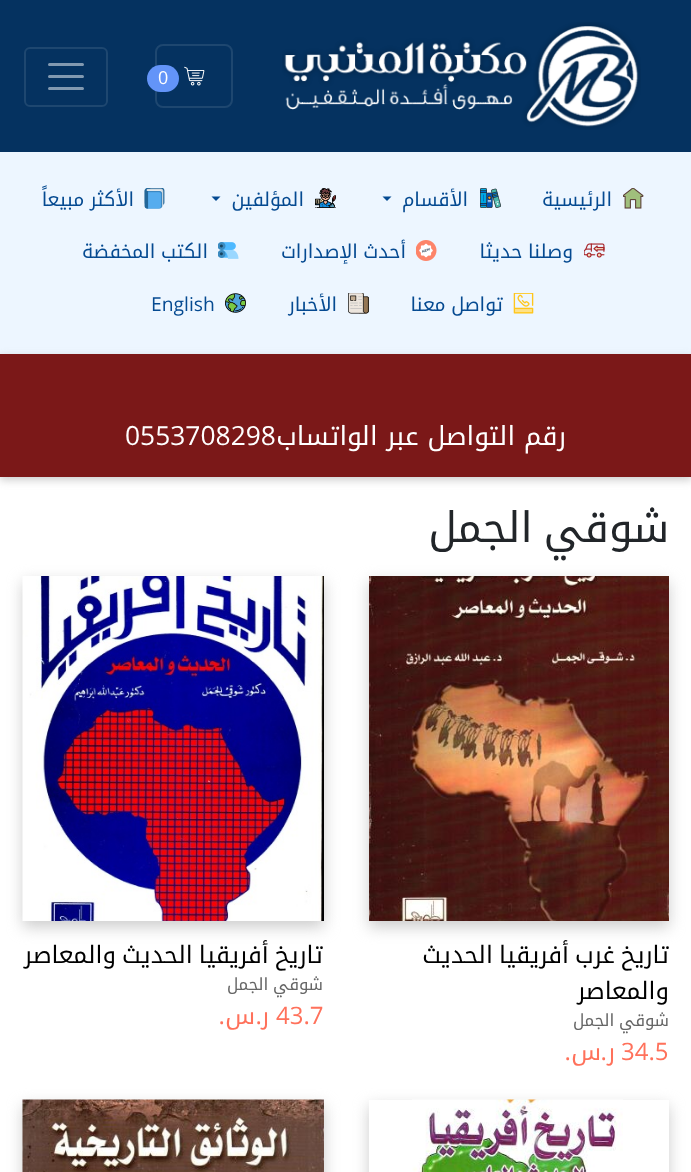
<svg xmlns="http://www.w3.org/2000/svg" width="691" height="1172">
<style>
.a{font:18px Open Sans;fill:#fff}
.b{font:19.25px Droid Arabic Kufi;direction:rtl;fill:#054a91}
.c{font:19.25px Open Sans;fill:#054a91}
.d{font:26.4px Droid Arabic Kufi;direction:rtl;fill:#fff}
.e{font:26.4px Open Sans;fill:#fff}
.f{font:42px Droid Arabic Kufi;direction:rtl;fill:#212529}
.g{font:24px Droid Arabic Kufi;direction:rtl;fill:#000}
.h{font:16.75px Droid Arabic Kufi;direction:rtl;fill:#666}
.i{font:24px Open Sans;fill:#ff715b}
.j{font:24px Droid Arabic Kufi;direction:rtl;fill:#ff715b}
.k{font:24px Open Sans;direction:rtl;fill:#ff715b}
</style>
<defs>
<clipPath id="clip1"><path d="M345 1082h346v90h-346zm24 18h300v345h-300z" clip-rule="evenodd"/></clipPath>
</defs>
<rect width="100%" height="100%" fill="#fff"/>
<path fill="#053260" d="M0 0h691v152H0z"/>
<image href="1.png" x="282" y="22" width="359" height="108"/>
<image href="2.png" x="184" y="66" width="21" height="20"/>
<rect fill="none" stroke="#1e4770" stroke-width="2" x="156" y="45" width="76" height="62" rx="7"/>
<rect fill="#6394f8" x="147" y="65" width="32" height="27" rx="13.5"/>
<rect fill="none" stroke="#1e4770" stroke-width="2" x="25" y="48" width="82" height="58" rx="5"/>
<path fill="none" stroke="#8299b0" stroke-width="3" stroke-linecap="round" d="M49.5 64.5h33m-33 12h33m-33 12h33"/>
<path fill="#edf6ff" d="M0 152h691v202H0z"/>
<image href="3.png" x="623" y="188" width="21" height="21"/>
<image href="4.png" x="480" y="188" width="21" height="20"/>
<path fill="#054a91" d="M382.5 196.5h9l-4.5 4.5z"/>
<image href="5.png" x="315" y="188" width="21" height="20"/>
<path fill="#054a91" d="M211.5 196.5h9l-4.5 4.5z"/>
<image href="6.png" x="144" y="188" width="21" height="21"/>
<image href="7.png" x="584" y="243" width="21" height="15"/>
<image href="8.png" x="416" y="240" width="21" height="21"/>
<image href="9.png" x="218" y="242" width="21" height="17"/>
<image href="10.png" x="513" y="293" width="21" height="21"/>
<image href="11.png" x="348" y="293" width="21" height="21"/>
<image href="12.png" x="225" y="293" width="21" height="20"/>
<path fill="#ccc" filter="blur(4.5px)" d="M0 357h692v123H0z"/>
<path fill="#7b1818" d="M0 354h691v123H0z"/>
<path fill="#ccc" filter="blur(7.5px)" d="M369 582h300v345H369z"/>
<image href="13.png" x="369" y="576" width="300" height="345"/>
<path fill="#ccc" filter="blur(7.5px)" d="M23 582h301v345H23z"/>
<image href="14.png" x="22" y="576" width="302" height="345"/>
<g clip-path="url(#clip1)">
<path fill="#ccc" filter="blur(7.5px)" d="M369 1106h300v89H369z"/>
</g>
<image href="15.png" x="412" y="1099" width="211" height="73"/>
<path fill="#ccc" filter="blur(7.5px)" d="M23 1106h301v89H23z"/>
<image href="16.png" x="22" y="1099" width="302" height="73"/>
<text class="a" x="158" y="84">0</text>
<text class="b" x="612" y="206">الرئيسية</text>
<text class="b" x="468" y="206">الأقسام</text>
<text class="b" x="304" y="206">المؤلفين</text>
<text class="b" x="134" y="206" word-spacing="-1">الأكثر مبيعاً</text>
<text class="b" x="573" y="258" word-spacing="-1">وصلنا حديثا</text>
<text class="b" x="406" y="258" word-spacing="-1">أحدث الإصدارات</text>
<text class="b" x="208" y="258" word-spacing="-1">الكتب المخفضة</text>
<text class="b" x="503" y="311" word-spacing="-1">تواصل معنا</text>
<text class="b" x="337" y="311">الأخبار</text>
<text class="c" x="151" y="311">English</text>
<text class="d" x="566" y="445">رقم التواصل عبر الواتساب</text>
<text class="e" x="125" y="445">0553708298</text>
<text class="f" x="669" y="542" word-spacing="-3">شوقي الجمل</text>
<text class="g" x="669" y="963" word-spacing="-2">تاريخ غرب أفريقيا الحديث</text>
<text class="g" x="669" y="999">والمعاصر</text>
<text class="h" x="669" y="1026" word-spacing="-1">شوقي الجمل</text>
<text class="i" x="621" y="1060">34.5</text>
<text class="j" x="615" y="1060">ر</text>
<text class="k" x="607" y="1060">.</text>
<text class="j" x="601" y="1060">س</text>
<text class="k" x="571" y="1060">.</text>
<text class="g" x="323" y="963" word-spacing="-2">تاريخ أفريقيا الحديث والمعاصر</text>
<text class="h" x="323" y="990" word-spacing="-1">شوقي الجمل</text>
<text class="i" x="276" y="1024">43.7</text>
<text class="j" x="269" y="1024">ر</text>
<text class="k" x="262" y="1024">.</text>
<text class="j" x="255" y="1024">س</text>
<text class="k" x="225" y="1024">.</text>
</svg>
